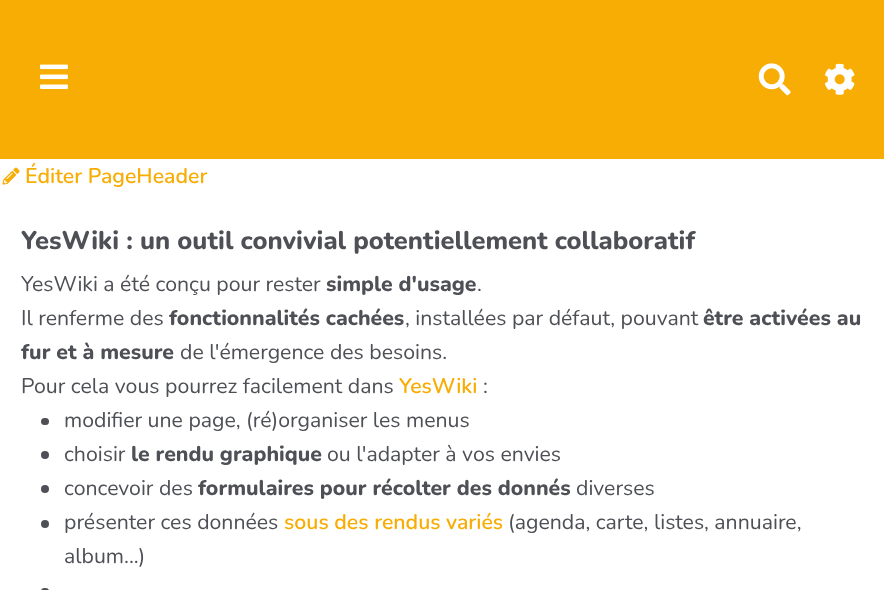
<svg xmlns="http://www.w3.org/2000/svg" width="884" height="590">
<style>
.a{font:600 21.25px Nunito;fill:#f8ad05}
.b{font:800 25.5px Nunito;fill:#4e5056}
.c{font:21.25px Nunito;fill:#4e5056}
.d{font:800 21.25px Nunito;fill:#4e5056}
</style>
<rect width="100%" height="100%" fill="#fff"/>
<path fill="#f8ad05" d="M0 0h884v159H0z"/>
<image href="1.png" x="40" y="64" width="28" height="25"/>
<image href="2.png" x="758" y="63" width="33" height="33"/>
<image href="3.png" x="824" y="63" width="31" height="32"/>
<image href="4.png" x="2" y="167" width="18" height="18"/>
<rect fill="#4e5056" x="41" y="418" width="8" height="7" rx="3.5"/>
<circle fill="#4e5056" cx="45" cy="455" r="4"/>
<circle fill="#4e5056" cx="45" cy="489" r="4"/>
<circle fill="#4e5056" cx="45" cy="524" r="4"/>
<rect fill="#4e5056" x="41" y="588" width="8" height="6" rx="3.5"/>
<text class="a" x="25" y="183">Éditer PageHeader</text>
<text class="b" x="21" y="249">YesWiki : un outil convivial potentiellement collaboratif</text>
<text class="c" x="21" y="291">YesWiki a été conçu pour rester</text>
<text class="d" x="326" y="291">simple d'usage</text>
<text class="c" x="477" y="291">.</text>
<text class="c" x="21" y="325">Il renferme des</text>
<text class="d" x="169" y="325">fonctionnalités cachées</text>
<text class="c" x="405" y="325">, installées par défaut, pouvant</text>
<text class="d" x="703" y="325">être activées au</text>
<text class="d" x="21" y="359">fur et à mesure</text>
<text class="c" x="180" y="359">de l'émergence des besoins.</text>
<text class="c" x="21" y="393">Pour cela vous pourrez facilement dans</text>
<text class="a" x="399" y="393">YesWiki</text>
<text class="c" x="483" y="393">:</text>
<text class="c" x="64" y="427">modifier une page, (ré)organiser les menus</text>
<text class="c" x="64" y="461">choisir</text>
<text class="d" x="131" y="461">le rendu graphique</text>
<text class="c" x="327" y="461">ou l'adapter à vos envies</text>
<text class="c" x="64" y="495">concevoir des</text>
<text class="d" x="198" y="495">formulaires pour récolter des donnés</text>
<text class="c" x="576" y="495">diverses</text>
<text class="c" x="64" y="529">présenter ces données</text>
<text class="a" x="284" y="529">sous des rendus variés</text>
<text class="c" x="508" y="529">(agenda, carte, listes, annuaire,</text>
<text class="c" x="64" y="563">album...)</text>
</svg>
